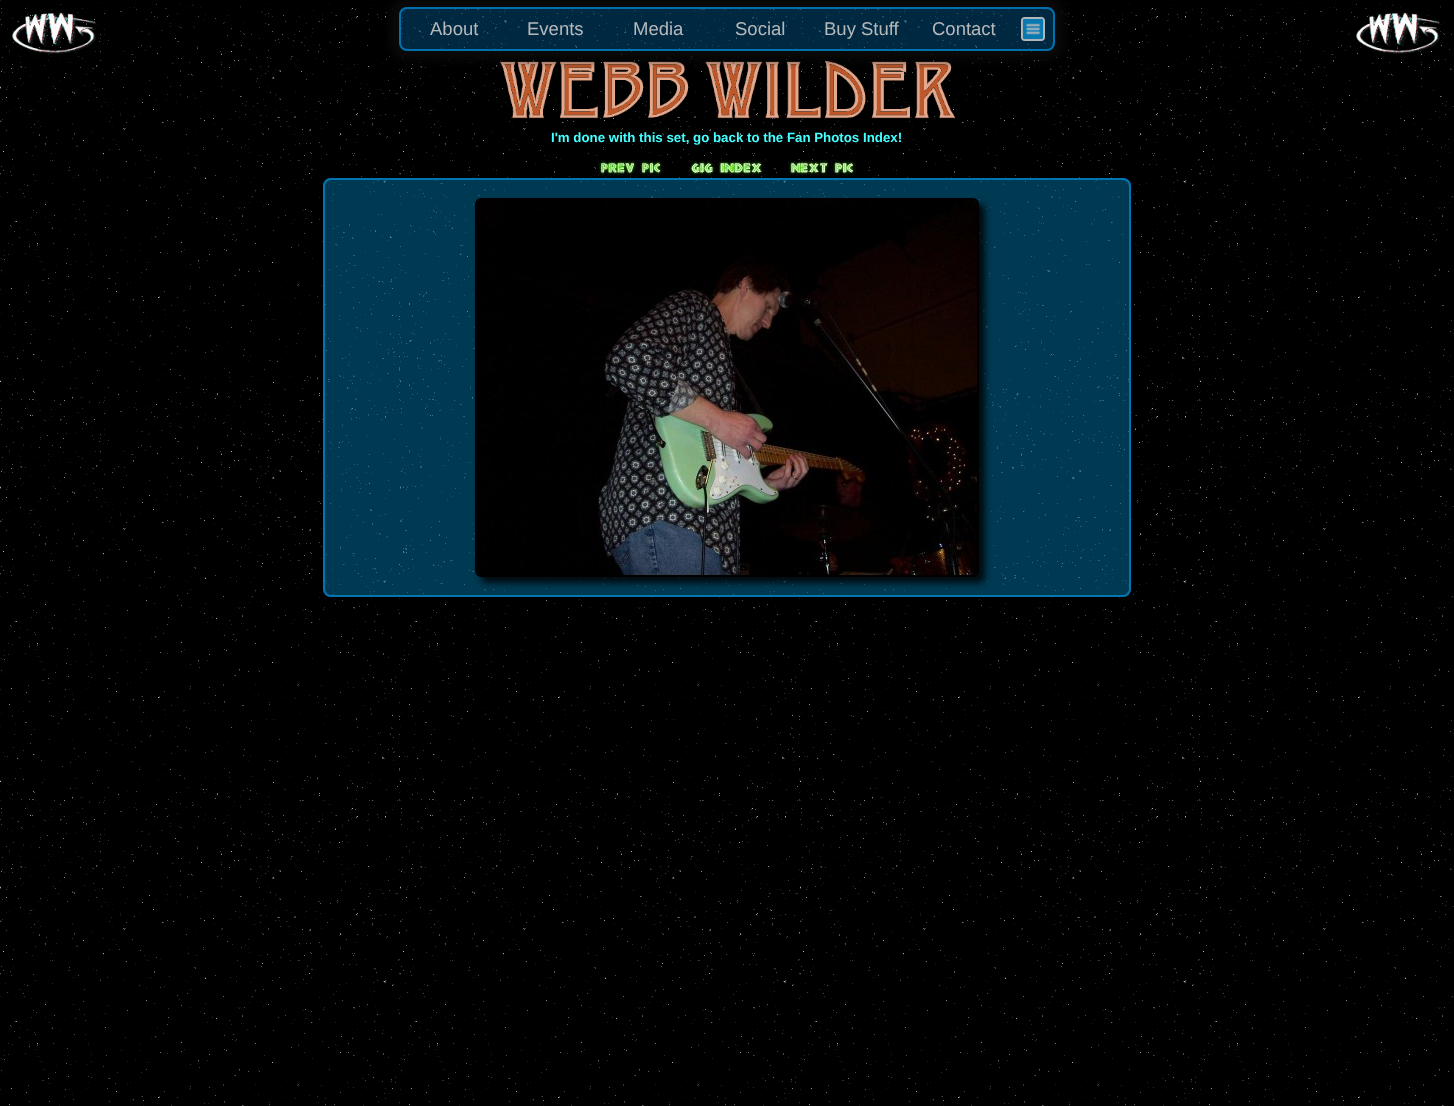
<svg xmlns="http://www.w3.org/2000/svg" width="1454" height="1106">
<style>
.a{font:18.5px Liberation Sans;fill:#b6b8ba}
.b{font:bold 13.3px Liberation Sans;fill:#4ff}
</style>
<defs>
<linearGradient id="g1" gradientUnits="userSpaceOnUse" x1="727" y1="0" x2="727" y2="68"><stop offset="0" stop-color="#000"/><stop offset="0.15" stop-color="#000" stop-opacity="0.01"/></linearGradient>
<clipPath id="clip1"><path d="M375 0h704v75h-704zm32 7h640c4.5 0 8 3.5 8 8v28c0 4.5-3.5 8-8 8h-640c-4.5 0-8-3.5-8-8v-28c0-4.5 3.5-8 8-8z" clip-rule="evenodd"/></clipPath>
</defs>
<rect width="100%" height="100%" fill="#fff"/>
<image href="1.png" x="0" y="0" width="1454" height="1106"/>
<image href="6.png" x="500" y="61" width="456" height="58"/>
<rect fill="url(#g1)" width="1454" height="68" rx="8"/>
<image href="2.png" x="12" y="12" width="86" height="42"/>
<g clip-path="url(#clip1)">
<rect fill="#0a0a0ad9" filter="blur(4.5px)" x="390" y="-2" width="674" height="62" rx="17"/>
</g>
<image href="3.png" x="399" y="7" width="656" height="44"/>
<rect fill="none" stroke="#0075b2f2" stroke-width="2" x="400" y="8" width="654" height="42" rx="7"/>
<rect fill="#c0c0c0f2" x="1021" y="17" width="24" height="24" rx="4"/>
<image href="4.png" x="1022" y="18" width="22" height="22"/>
<image href="5.png" x="1356" y="12" width="86" height="42"/>
<image href="7.png" x="598" y="160" width="65" height="16"/>
<image href="8.png" x="688" y="160" width="77" height="16"/>
<image href="9.png" x="788" y="160" width="68" height="16"/>
<image href="10.png" x="323" y="178" width="808" height="419"/>
<rect fill="none" stroke="#0075b2" stroke-width="2" x="324" y="179" width="806" height="417" rx="7"/>
<rect fill="#000000cc" filter="blur(3px)" x="481" y="204" width="504" height="379" rx="6"/>
<rect fill="none" stroke="#000" stroke-width="2" x="476" y="199" width="502" height="377" rx="5"/>
<image href="11.png" x="477" y="200" width="500" height="375"/>
<text class="a" x="430" y="35">About</text>
<text class="a" x="527" y="35">Events</text>
<text class="a" x="633" y="35">Media</text>
<text class="a" x="735" y="35">Social</text>
<text class="a" x="824" y="35">Buy Stuff</text>
<text class="a" x="932" y="35">Contact</text>
<text class="b" x="551" y="142">I'm done with this set, go back to the Fan Photos Index!</text>
</svg>
